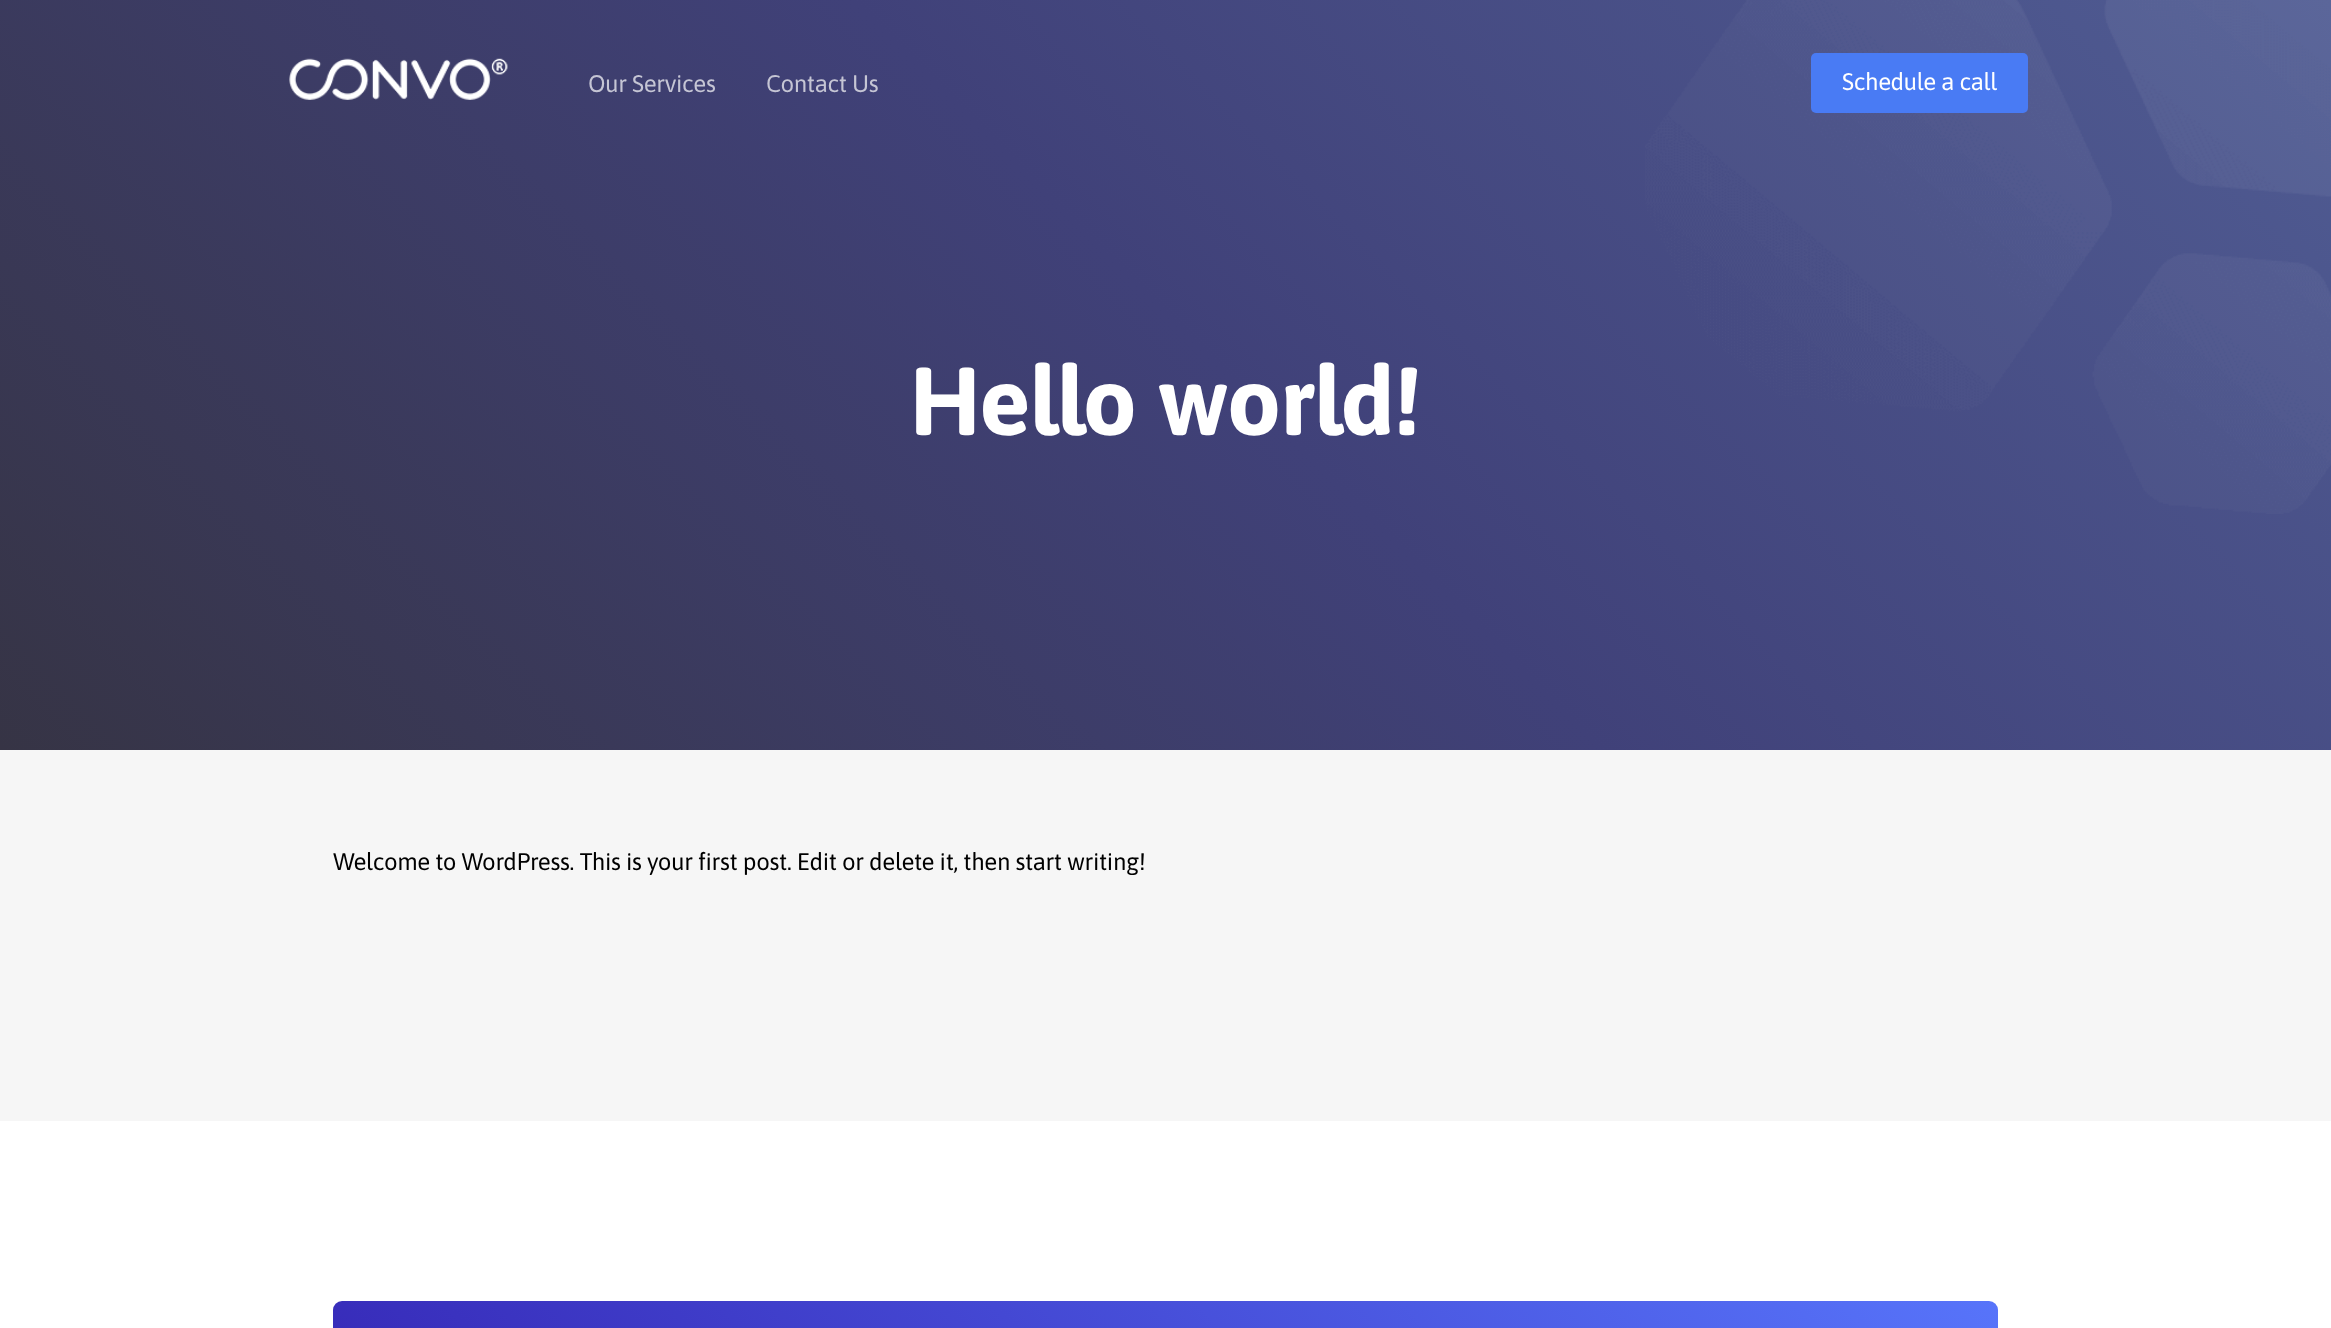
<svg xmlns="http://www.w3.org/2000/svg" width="2331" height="1328">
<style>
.a{font:24px Asap;letter-spacing:-0.35px;fill:#c5c5d4}
.b{font:24px Asap;letter-spacing:-0.35px;fill:#fff}
.c{font:bold 96px Asap;letter-spacing:-1.4px;fill:#fff}
.d{font:24px Asap;letter-spacing:-0.35px;fill:#000}
</style>
<defs>
<linearGradient id="g1" gradientUnits="userSpaceOnUse" x1="395" y1="1145" x2="1936" y2="-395"><stop offset="0" stop-color="#363445"/><stop offset="0.52" stop-color="#404179"/><stop offset="1" stop-color="#505c93"/></linearGradient>
<linearGradient id="g2" gradientUnits="userSpaceOnUse" x1="639" y1="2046" x2="1692" y2="994"><stop offset="0" stop-color="#301cab"/><stop offset="0.52" stop-color="#4448d3"/><stop offset="1" stop-color="#5774fa"/></linearGradient>
</defs>
<rect width="100%" height="100%" fill="#fff"/>
<path fill="url(#g1)" d="M0 0h2331v750H0z"/>
<image href="1.png" x="289" y="58" width="219" height="42"/>
<image href="2.png" x="1645" y="0" width="686" height="514"/>
<rect fill="#497bf4" x="1811" y="53" width="217" height="60" rx="5"/>
<path fill="#f6f6f6" d="M0 750h2331v371H0z"/>
<rect fill="url(#g2)" x="333" y="1301" width="1665" height="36" rx="9"/>
<text class="a" x="588" y="92">Our Services</text>
<text class="a" x="766" y="92">Contact Us</text>
<text class="b" x="1842" y="90">Schedule a call</text>
<text class="c" x="910" y="435">Hello world!</text>
<text class="d" x="333" y="870">Welcome to WordPress. This is your first post. Edit or delete it, then start writing!</text>
</svg>
